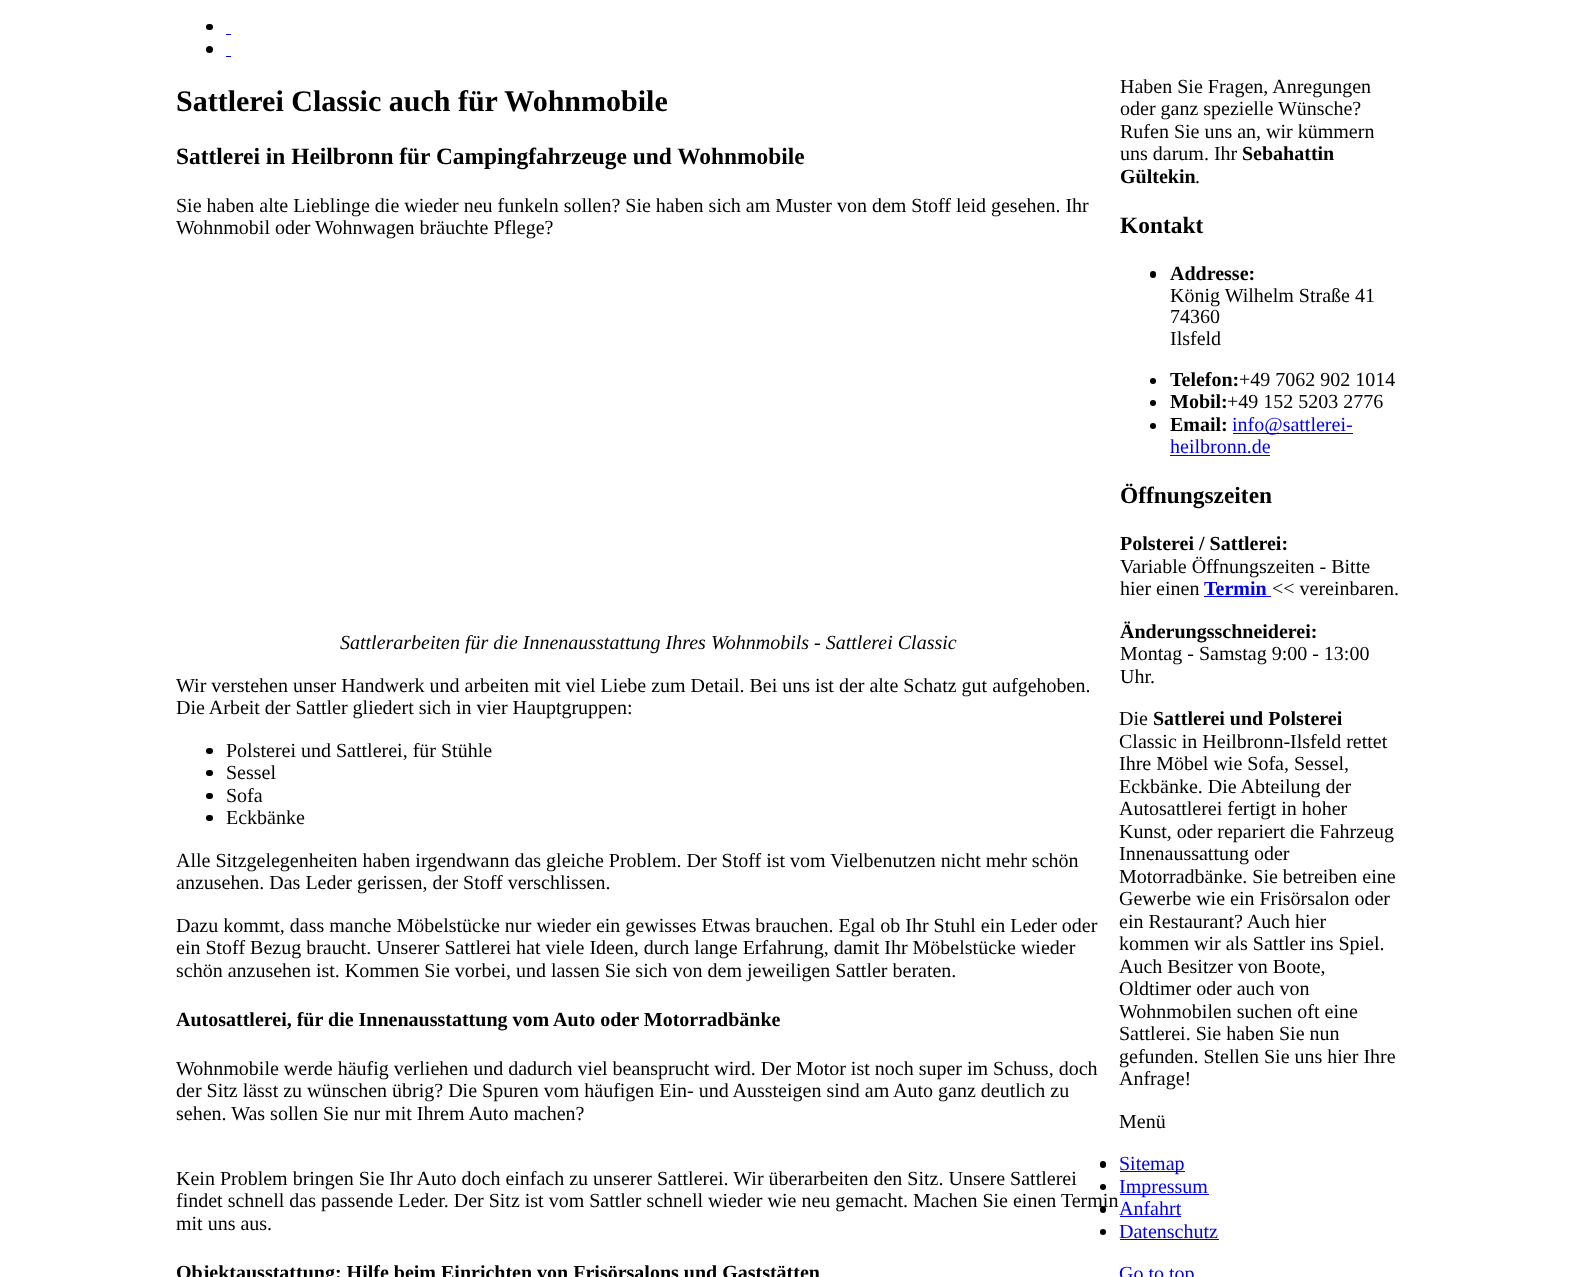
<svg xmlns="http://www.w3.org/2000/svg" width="1577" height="1277">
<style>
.a{font:bold 30px Liberation Serif;fill:#000}
.b{font:bold 23.4px Liberation Serif;fill:#000}
.c{font:20px Liberation Serif;fill:#000}
.d{font:italic 20px Liberation Serif;fill:#000}
.e{font:bold 20px Liberation Serif;fill:#000}
.f{font:20px Liberation Serif;fill:#00e}
.g{font:bold 20px Liberation Serif;fill:#00e}
</style>
<rect width="100%" height="100%" fill="#fff"/>
<rect fill="#000" x="206" y="24" width="7" height="6" rx="3"/>
<path fill="#00e" d="M226 34h5v1H226z"/>
<circle fill="#000" cx="209.5" cy="49.5" r="3.5"/>
<path fill="#00e" d="M226 56h5v1H226z"/>
<rect fill="#000" x="206" y="748" width="7" height="6" rx="3"/>
<rect fill="#000" x="206" y="770" width="7" height="6" rx="3"/>
<rect fill="#000" x="206" y="793" width="7" height="6" rx="3"/>
<rect fill="#000" x="206" y="815" width="7" height="6" rx="3"/>
<rect fill="#000" x="1150" y="271" width="6" height="7" rx="3"/>
<circle fill="#000" cx="1153" cy="381" r="3"/>
<circle fill="#000" cx="1153" cy="403" r="3"/>
<circle fill="#000" cx="1153" cy="426" r="3"/>
<path fill="#00e" d="M1233 433h120v1H1233z"/>
<path fill="#00e" d="M1170 455h100v1H1170z"/>
<path fill="#00e" d="M1204 596h67v1H1204z"/>
<rect fill="#000" x="1100" y="1161" width="6" height="7" rx="3"/>
<path fill="#00e" d="M1120 1171h65v1H1120z"/>
<circle fill="#000" cx="1103" cy="1187" r="3"/>
<path fill="#00e" d="M1120 1194h89v1H1120z"/>
<rect fill="#000" x="1100" y="1206" width="6" height="7" rx="3"/>
<path fill="#00e" d="M1120 1216h61v1H1120z"/>
<circle fill="#000" cx="1103" cy="1232" r="3"/>
<path fill="#00e" d="M1120 1239h99v1H1120z"/>
<text class="a" x="176" y="111">Sattlerei Classic auch für Wohnmobile</text>
<text class="b" x="176" y="164">Sattlerei in Heilbronn für Campingfahrzeuge und Wohnmobile</text>
<text class="c" x="176" y="212">Sie haben alte Lieblinge die wieder neu funkeln sollen? Sie haben sich am Muster von dem Stoff leid gesehen. Ihr</text>
<text class="c" x="176" y="234">Wohnmobil oder Wohnwagen bräuchte Pflege?</text>
<text class="d" x="340" y="649">Sattlerarbeiten für die Innenausstattung Ihres Wohnmobils - Sattlerei Classic</text>
<text class="c" x="176" y="692">Wir verstehen unser Handwerk und arbeiten mit viel Liebe zum Detail. Bei uns ist der alte Schatz gut aufgehoben.</text>
<text class="c" x="176" y="714">Die Arbeit der Sattler gliedert sich in vier Hauptgruppen:</text>
<text class="c" x="226" y="757">Polsterei und Sattlerei, für Stühle</text>
<text class="c" x="226" y="779">Sessel</text>
<text class="c" x="226" y="802">Sofa</text>
<text class="c" x="226" y="824">Eckbänke</text>
<text class="c" x="176" y="867">Alle Sitzgelegenheiten haben irgendwann das gleiche Problem. Der Stoff ist vom Vielbenutzen nicht mehr schön</text>
<text class="c" x="176" y="889">anzusehen. Das Leder gerissen, der Stoff verschlissen.</text>
<text class="c" x="176" y="932">Dazu kommt, dass manche Möbelstücke nur wieder ein gewisses Etwas brauchen. Egal ob Ihr Stuhl ein Leder oder</text>
<text class="c" x="176" y="954">ein Stoff Bezug braucht. Unserer Sattlerei hat viele Ideen, durch lange Erfahrung, damit Ihr Möbelstücke wieder</text>
<text class="c" x="176" y="977">schön anzusehen ist. Kommen Sie vorbei, und lassen Sie sich von dem jeweiligen Sattler beraten.</text>
<text class="e" x="176" y="1026">Autosattlerei, für die Innenausstattung vom Auto oder Motorradbänke</text>
<text class="c" x="176" y="1075">Wohnmobile werde häufig verliehen und dadurch viel beansprucht wird. Der Motor ist noch super im Schuss, doch</text>
<text class="c" x="176" y="1097">der Sitz lässt zu wünschen übrig? Die Spuren vom häufigen Ein- und Aussteigen sind am Auto ganz deutlich zu</text>
<text class="c" x="176" y="1120">sehen. Was sollen Sie nur mit Ihrem Auto machen?</text>
<text class="c" x="176" y="1185">Kein Problem bringen Sie Ihr Auto doch einfach zu unserer Sattlerei. Wir überarbeiten den Sitz. Unsere Sattlerei</text>
<text class="c" x="176" y="1207">findet schnell das passende Leder. Der Sitz ist vom Sattler schnell wieder wie neu gemacht. Machen Sie einen Termin</text>
<text class="c" x="176" y="1230">mit uns aus.</text>
<text class="e" x="176" y="1279">Objektausstattung: Hilfe beim Einrichten von Frisörsalons und Gaststätten</text>
<text class="c" x="1120" y="93">Haben Sie Fragen, Anregungen</text>
<text class="c" x="1120" y="115">oder ganz spezielle Wünsche?</text>
<text class="c" x="1120" y="138">Rufen Sie uns an, wir kümmern</text>
<text class="c" x="1120" y="160">uns darum. Ihr</text>
<text class="e" x="1242" y="160">Sebahattin</text>
<text class="e" x="1120" y="183">Gültekin</text>
<text class="c" x="1195" y="183">.</text>
<text class="b" x="1120" y="233">Kontakt</text>
<text class="e" x="1170" y="280">Addresse:</text>
<text class="c" x="1170" y="302">König Wilhelm Straße 41</text>
<text class="c" x="1170" y="323">74360</text>
<text class="c" x="1170" y="345">Ilsfeld</text>
<text class="e" x="1170" y="386">Telefon:</text>
<text class="c" x="1239" y="386">+49 7062 902 1014</text>
<text class="e" x="1170" y="408">Mobil:</text>
<text class="c" x="1227" y="408">+49 152 5203 2776</text>
<text class="e" x="1170" y="431">Email:</text>
<text class="f" x="1232" y="431">info@sattlerei-</text>
<text class="f" x="1170" y="453">heilbronn.de</text>
<text class="b" x="1120" y="503">Öffnungszeiten</text>
<text class="e" x="1120" y="550">Polsterei / Sattlerei:</text>
<text class="c" x="1120" y="573">Variable Öffnungszeiten - Bitte</text>
<text class="c" x="1120" y="595">hier einen</text>
<text class="g" x="1204" y="595">Termin</text>
<text class="c" x="1272" y="595">&lt;&lt; vereinbaren.</text>
<text class="e" x="1120" y="638">Änderungsschneiderei:</text>
<text class="c" x="1120" y="660">Montag - Samstag 9:00 - 13:00</text>
<text class="c" x="1120" y="683">Uhr.</text>
<text class="c" x="1119" y="725">Die</text>
<text class="e" x="1153" y="725">Sattlerei und Polsterei</text>
<text class="c" x="1119" y="748">Classic in Heilbronn-Ilsfeld rettet</text>
<text class="c" x="1119" y="770">Ihre Möbel wie Sofa, Sessel,</text>
<text class="c" x="1119" y="793">Eckbänke. Die Abteilung der</text>
<text class="c" x="1119" y="815">Autosattlerei fertigt in hoher</text>
<text class="c" x="1119" y="838">Kunst, oder repariert die Fahrzeug</text>
<text class="c" x="1119" y="860">Innenaussattung oder</text>
<text class="c" x="1119" y="883">Motorradbänke. Sie betreiben eine</text>
<text class="c" x="1119" y="905">Gewerbe wie ein Frisörsalon oder</text>
<text class="c" x="1119" y="928">ein Restaurant? Auch hier</text>
<text class="c" x="1119" y="950">kommen wir als Sattler ins Spiel.</text>
<text class="c" x="1119" y="973">Auch Besitzer von Boote,</text>
<text class="c" x="1119" y="995">Oldtimer oder auch von</text>
<text class="c" x="1119" y="1018">Wohnmobilen suchen oft eine</text>
<text class="c" x="1119" y="1040">Sattlerei. Sie haben Sie nun</text>
<text class="c" x="1119" y="1063">gefunden. Stellen Sie uns hier Ihre</text>
<text class="c" x="1119" y="1085">Anfrage!</text>
<text class="c" x="1119" y="1128">Menü</text>
<text class="f" x="1119" y="1170">Sitemap</text>
<text class="f" x="1119" y="1193">Impressum</text>
<text class="f" x="1119" y="1215">Anfahrt</text>
<text class="f" x="1119" y="1238">Datenschutz</text>
<text class="f" x="1119" y="1280">Go to top</text>
</svg>
